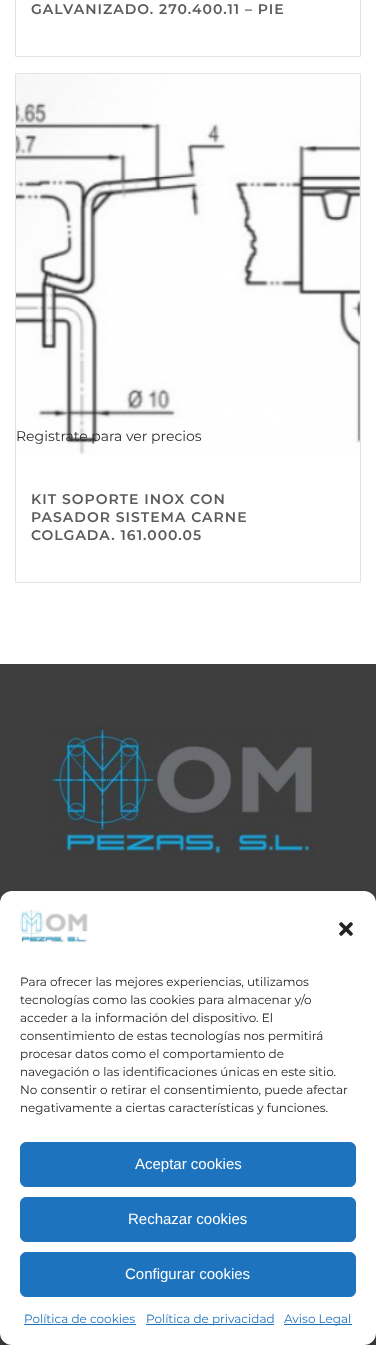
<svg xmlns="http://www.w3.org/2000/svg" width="376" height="1345">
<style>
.a{font:600 14px Montserrat;letter-spacing:1px;fill:#5b5b5b}
.b{font:14px Montserrat;fill:#2e2e2e}
.c{font:12px Montserrat;fill:#222}
.d{font:15px Liberation Sans;fill:#fff}
.e{font:12px Montserrat;fill:#1e73be}
</style>
<rect width="100%" height="100%" fill="#fff"/>
<path fill="none" stroke="#e3e3e3" d="M15.5 -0.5h345v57H15.5z"/>
<path fill="none" stroke="#e3e3e3" d="M15.5 73.5h345v509H15.5z"/>
<image href="1.png" x="16" y="74" width="344" height="381"/>
<path fill="#3e3e3e" d="M0 664h376v681H0z"/>
<image href="2.png" x="47" y="725" width="268" height="137"/>
<rect fill="#0000003b" filter="blur(3px)" y="897" width="376" height="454" rx="12"/>
<rect fill="#fff" y="891" width="376" height="454" rx="12"/>
<image href="3.png" x="20" y="909" width="68" height="34"/>
<image href="4.png" x="339" y="922" width="14" height="14"/>
<rect fill="#1e73be" stroke="#1e73be" x="20.5" y="1142.5" width="335" height="44" rx="5.5"/>
<rect fill="#1e73be" stroke="#1e73be" x="20.5" y="1197.5" width="335" height="44" rx="5.5"/>
<rect fill="#1e73be" stroke="#1e73be" x="20.5" y="1252.5" width="335" height="44" rx="5.5"/>
<path fill="#1e73be" d="M24 1324h112v1H24z"/>
<path fill="#1e73be" d="M146 1324h128v1H146z"/>
<path fill="#1e73be" d="M284 1324h68v1H284z"/>
<text class="a" x="31" y="14">GALVANIZADO. 270.400.11 – PIE</text>
<text class="b" x="16" y="441">Registrate para ver precios</text>
<text class="a" x="31" y="504">KIT SOPORTE INOX CON</text>
<text class="a" x="31" y="522">PASADOR SISTEMA CARNE</text>
<text class="a" x="31" y="540">COLGADA. 161.000.05</text>
<text class="c" x="20" y="986">Para ofrecer las mejores experiencias, utilizamos</text>
<text class="c" x="20" y="1004">tecnologías como las cookies para almacenar y/o</text>
<text class="c" x="20" y="1022">acceder a la información del dispositivo. El</text>
<text class="c" x="20" y="1040">consentimiento de estas tecnologías nos permitirá</text>
<text class="c" x="20" y="1058">procesar datos como el comportamiento de</text>
<text class="c" x="20" y="1076">navegación o las identificaciones únicas en este sitio.</text>
<text class="c" x="20" y="1094">No consentir o retirar el consentimiento, puede afectar</text>
<text class="c" x="20" y="1112">negativamente a ciertas características y funciones.</text>
<text class="d" x="135" y="1169">Aceptar cookies</text>
<text class="d" x="128" y="1224">Rechazar cookies</text>
<text class="d" x="125" y="1279">Configurar cookies</text>
<text class="e" x="24" y="1323">Política de cookies</text>
<text class="e" x="146" y="1323">Política de privacidad</text>
<text class="e" x="284" y="1323">Aviso Legal</text>
</svg>
